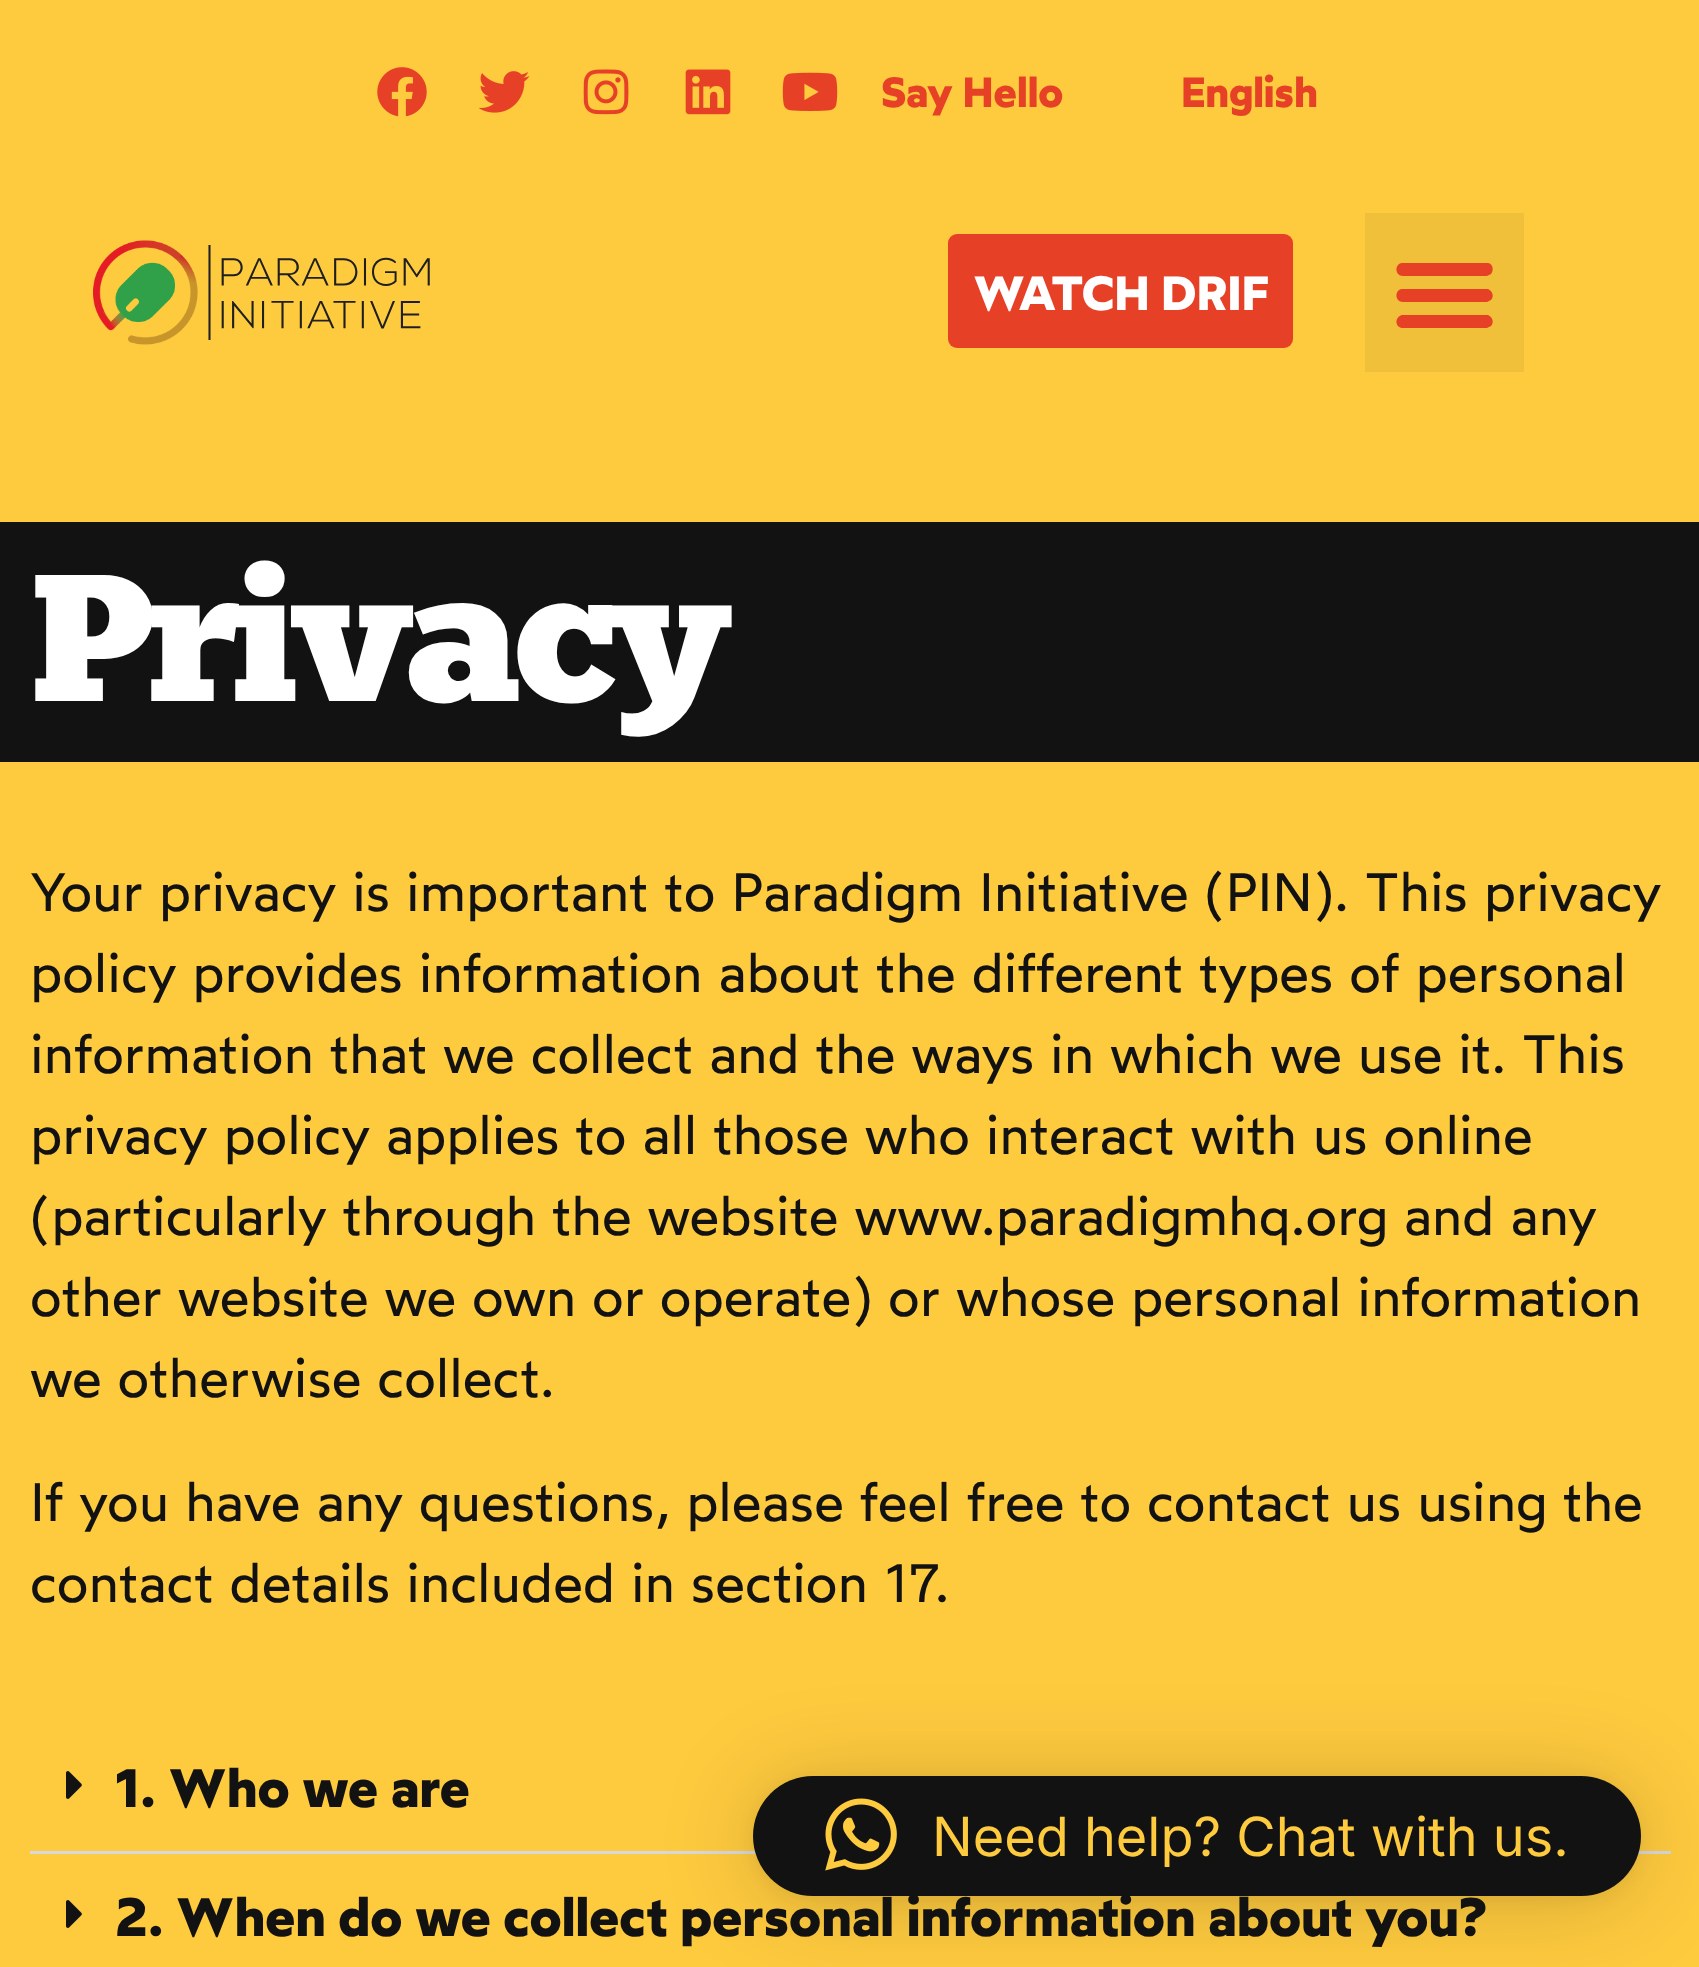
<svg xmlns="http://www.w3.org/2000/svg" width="1699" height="1967">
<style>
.a{font:bold 42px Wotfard;fill:#e64127}
.b{font:bold 48px Wotfard;fill:#fff}
.c{font:900 180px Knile;letter-spacing:-9px;fill:#fff}
.d{font:54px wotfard;fill:#121212}
.e{font:bold 54px Wotfard;fill:#121212}
.f{font:54px Inter;fill:#feca3e}
</style>
<rect width="100%" height="100%" fill="#feca3e"/>
<image href="1.png" x="377" y="67" width="50" height="50"/>
<image href="2.png" x="478" y="71" width="52" height="42"/>
<image href="3.png" x="583" y="69" width="46" height="46"/>
<image href="4.png" x="685" y="69" width="46" height="46"/>
<image href="5.png" x="782" y="72" width="56" height="39"/>
<image href="6.png" x="93" y="240" width="337" height="105"/>
<rect fill="#e64127" x="948" y="234" width="345" height="114" rx="9"/>
<path fill="#f1c03b" d="M1365 213h159v159H1365z"/>
<path fill="#e64127" d="M1403 276h84l4-2c3-4 2-10-3-11h-86c-8 1-7 13 1 13zm0 26h84l4-2c3-3 2-9-3-11h-86c-8 1-7 13 1 13zm0 26h84l4-2c3-3 2-9-3-11h-86c-8 2-7 13 1 13z"/>
<path fill="#121212" d="M0 522h1699v240H0z"/>
<path fill="#d5d8dc" d="M30 1851h1641v3H30z"/>
<image href="7.png" x="66" y="1771" width="16" height="28"/>
<image href="7.png" x="66" y="1900" width="16" height="28"/>
<rect fill="#00000029" filter="blur(48px)" x="753" y="1782" width="888" height="120" rx="60"/>
<rect fill="#0000000f" filter="blur(9px)" x="753" y="1779" width="888" height="120" rx="60"/>
<rect fill="#121212" x="753" y="1776" width="888" height="120" rx="60"/>
<image href="8.png" x="825" y="1798" width="72" height="73"/>
<text class="a" x="881" y="107">Say Hello</text>
<text class="a" x="1181" y="107">English</text>
<text class="b" x="973" y="310">WATCH DRIF</text>
<text class="c" x="30" y="701">Privacy</text>
<text class="d" x="30" y="911">Your privacy is important to Paradigm Initiative (PIN). This privacy</text>
<text class="d" x="30" y="992">policy provides information about the different types of personal</text>
<text class="d" x="30" y="1073">information that we collect and the ways in which we use it. This</text>
<text class="d" x="30" y="1154">privacy policy applies to all those who interact with us online</text>
<text class="d" x="30" y="1235">(particularly through the website www.paradigmhq.org and any</text>
<text class="d" x="30" y="1316">other website we own or operate) or whose personal information</text>
<text class="d" x="30" y="1397">we otherwise collect.</text>
<text class="d" x="30" y="1521">If you have any questions, please feel free to contact us using the</text>
<text class="d" x="30" y="1602">contact details included in section 17.</text>
<text class="e" x="114" y="1807">1. Who we are</text>
<text class="e" x="114" y="1936">2. When do we collect personal information about you?</text>
<text class="f" x="932" y="1856">Need help? Chat with us.</text>
</svg>
